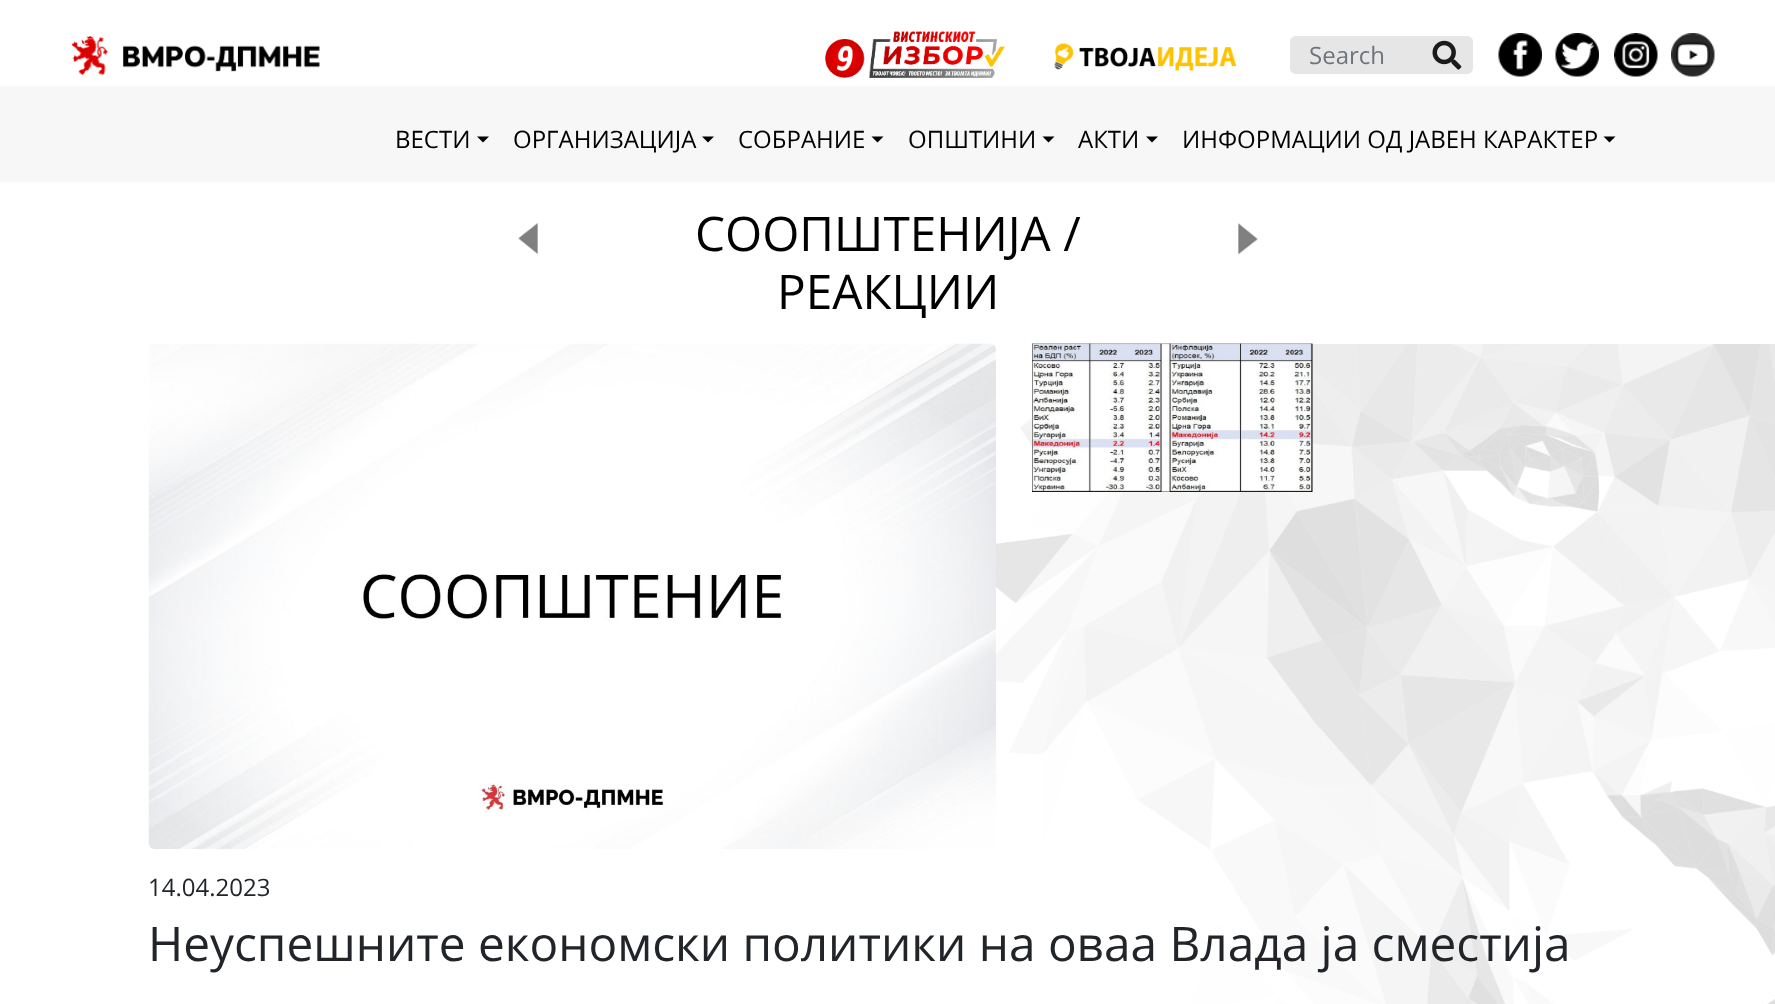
<svg xmlns="http://www.w3.org/2000/svg" width="1775" height="1004">
<style>
.a{font:24px Open Sans;fill:#6c757d}
.b{font:24px Open Sans;fill:#000}
.c{font:47.75px Open Sans;fill:#000}
.d{font:24px Open Sans;fill:#212529}
.e{font:47.75px Open Sans;fill:#212529}
</style>
<rect width="100%" height="100%" fill="#fff"/>
<image href="1.png" x="72" y="36" width="248" height="39"/>
<image href="2.png" x="825" y="31" width="180" height="47"/>
<image href="3.png" x="1054" y="43" width="182" height="28"/>
<path fill="#e6e6e6" d="M1296 36h126v38h-126c-3.5 0-6-2.5-6-6v-26c0-3.5 2.5-6 6-6z"/>
<path fill="#e6e6e6" d="M1421 36h46c3.5 0 6 2.5 6 6v26c0 3.5-2.5 6-6 6h-46z"/>
<image href="4.png" x="1432" y="40" width="30" height="30"/>
<image href="5.png" x="1498" y="33" width="44" height="44"/>
<image href="6.png" x="1555" y="33" width="44" height="44"/>
<image href="7.png" x="1614" y="33" width="44" height="44"/>
<image href="8.png" x="1671" y="33" width="44" height="44"/>
<path fill="#f7f7f7" d="M0 86h1775v96H0z"/>
<path fill="#000" d="M477 136.5h12l-6 6z"/>
<path fill="#000" d="M702 136.5h12l-6 6z"/>
<path fill="#000" d="M871.5 136.5h12l-6 6z"/>
<path fill="#000" d="M1042.5 136.5h12l-6 6z"/>
<path fill="#000" d="M1146 136.5h12l-6 6z"/>
<path fill="#000" d="M1603.5 136.5h12l-6 6z"/>
<image href="9.png" x="991" y="344" width="784" height="660"/>
<image href="10.png" x="518" y="223" width="20" height="31"/>
<image href="11.png" x="1238" y="223" width="20" height="32"/>
<image href="12.png" x="148" y="343" width="848" height="506"/>
<image href="13.png" x="1032" y="343" width="281" height="149"/>
<text class="a" x="1309" y="64">Search</text>
<text class="b" x="395" y="148">ВЕСТИ</text>
<text class="b" x="513" y="148">ОРГАНИЗАЦИЈА</text>
<text class="b" x="738" y="148">СОБРАНИЕ</text>
<text class="b" x="908" y="148">ОПШТИНИ</text>
<text class="b" x="1078" y="148">АКТИ</text>
<text class="b" x="1182" y="148">ИНФОРМАЦИИ ОД ЈАВЕН КАРАКТЕР</text>
<text class="c" x="695" y="251">СООПШТЕНИЈА /</text>
<text class="c" x="777" y="309">РЕАКЦИИ</text>
<text class="d" x="148" y="896">14.04.2023</text>
<text class="e" x="148" y="961">Неуспешните економски политики на оваа Влада ја сместија</text>
</svg>
